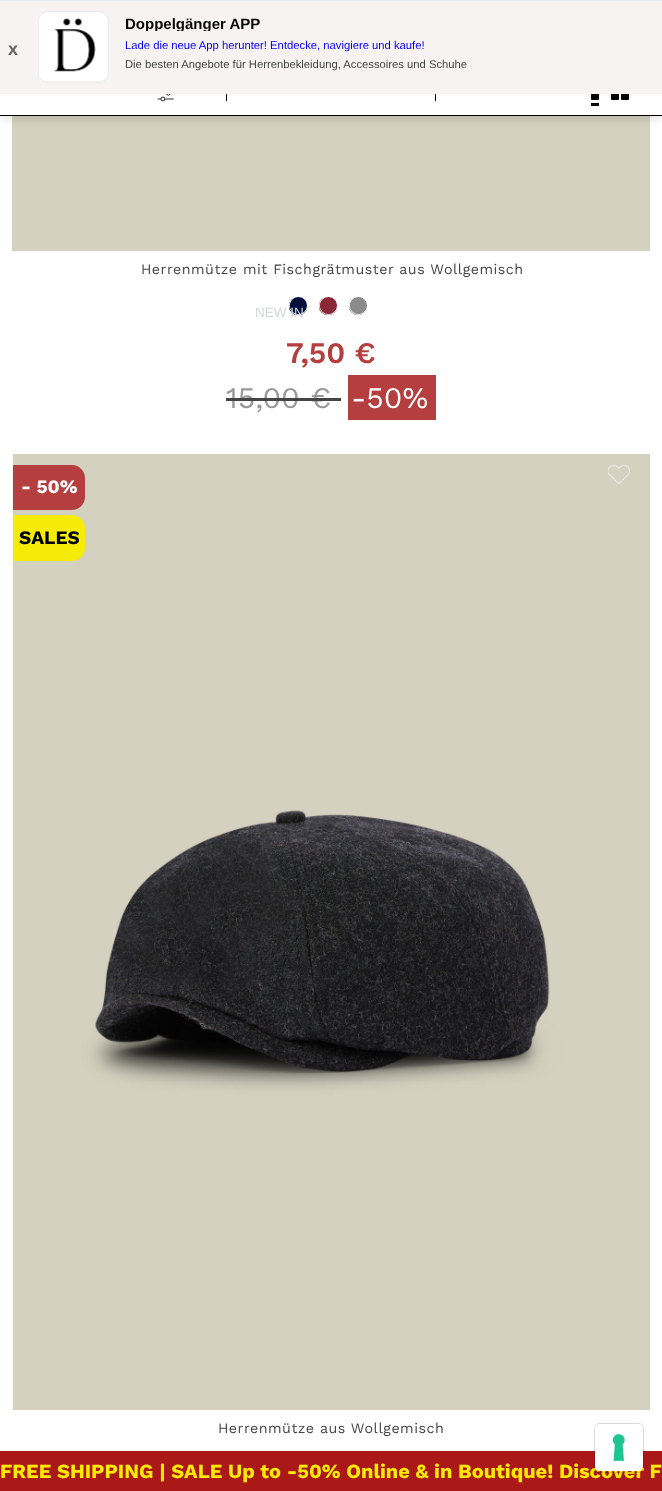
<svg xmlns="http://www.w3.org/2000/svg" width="662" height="1491">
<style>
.a{font:bold 18px Liberation Sans;fill:#666}
.b{font:bold 15px Liberation Sans;fill:#070707}
.c{font:11.25px Liberation Sans;fill:#00f}
.d{font:11.25px Liberation Sans;fill:#444}
.e{font:14.25px Work Sans;letter-spacing:0.5px;fill:#444}
.f{font:600 30px Work Sans;fill:#b53f3f}
.g{font:30px Work Sans;fill:#999}
.h{font:30px Work Sans;fill:#fff}
.i{font:bold 19px Work Sans;fill:#fff}
.j{font:bold 19px Work Sans;fill:#000}
.k{font:13.5px Liberation Sans;fill:#d3d5dd}
.l{font:bold 20px Work Sans;fill:#ffea00}
</style>
<defs>
<clipPath id="clip1"><path d="M125 11h343v20H125z"/></clipPath>
</defs>
<rect width="100%" height="100%" fill="#fff"/>
<path fill="#d5d1c0" d="M12 116h638v135H12z"/>
<path fill="#0000001a" filter="blur(4px)" d="M1 75h660v45H1z"/>
<path fill="#fff" d="M0 94h662v21H0z"/>
<rect fill="#000" x="591" y="81" width="8" height="19" rx="1"/>
<rect fill="#000" x="611" y="81" width="8" height="19" rx="1"/>
<rect fill="#000" x="621" y="81" width="8" height="19" rx="1"/>
<path fill="#f8f3f3" d="M0 1h662v93H0z"/>
<path fill="#e8ecf1" d="M0 0h662v1H0z"/>
<rect fill="none" stroke="#e8ecf1" x="38.5" y="11.5" width="70" height="71" rx="9.5"/>
<image href="1.png" x="38" y="12" width="70" height="69"/>
<image href="2.png" x="288" y="296" width="20" height="20"/>
<circle fill="none" stroke="#fff" cx="298.5" cy="305.5" r="9"/>
<image href="3.png" x="290" y="298" width="16" height="16"/>
<image href="4.png" x="318" y="296" width="20" height="20"/>
<circle fill="none" stroke="#fff" cx="328.5" cy="305.5" r="9"/>
<image href="5.png" x="320" y="298" width="16" height="16"/>
<image href="6.png" x="348" y="296" width="20" height="20"/>
<circle fill="none" stroke="#fff" cx="358.5" cy="305.5" r="9"/>
<image href="7.png" x="350" y="300" width="13" height="14"/>
<path fill="#b53f3f" d="M348 375h88v45H348z"/>
<image href="9.png" x="12" y="454" width="638" height="957"/>
<image href="8.png" x="608" y="464" width="22" height="21"/>
<path fill="#b53f3f" d="M13 465h59c7 0 13 6 13 13v19c0 7-6 13-13 13h-59z"/>
<path fill="#f5eb07" d="M13 515h59c7 0 13 6 13 13v20c0 7-6 13-13 13h-59z"/>
<path fill="#000" d="M0 115h662v1H0z"/>
<image href="10.png" x="157" y="94" width="17" height="8"/>
<path fill="#000" d="M591 103h8v3H591z"/>
<path fill="#000" d="M435 94h1v7H435z"/>
<path fill="#000" d="M226 94h1v7H226z"/>
<path fill="#aa1818" d="M0 1451h662v40H0z"/>
<text class="a" x="8" y="55">x</text>
<g clip-path="url(#clip1)">
<text class="b" x="125" y="29">Doppelgänger APP</text>
</g>
<text class="c" x="125" y="49">Lade die neue App herunter! Entdecke, navigiere und kaufe!</text>
<text class="d" x="125" y="68">Die besten Angebote für Herrenbekleidung, Accessoires und Schuhe</text>
<text class="e" x="141" y="274">Herrenmütze mit Fischgrätmuster aus Wollgemisch</text>
<text class="f" x="286" y="363">7,50 €</text>
<text class="g" x="226" y="408">15,00 €</text>
<path fill="#444" d="M226 398h115v3H226z"/>
<text class="h" x="351" y="408">-50%</text>
<text class="i" x="21" y="493">- 50%</text>
<text class="j" x="19" y="544">SALES</text>
<text class="e" x="218" y="1433">Herrenmütze aus Wollgemisch</text>
<text class="k" x="255" y="317">NEW IN</text>
<text class="l" x="0" y="1478">FREE SHIPPING | SALE Up to -50% Online &amp; in Boutique! Discover F</text>
<rect fill="none" stroke="#00000026" x="594.5" y="1423.5" width="49" height="49" rx="5.5"/>
<rect fill="#fff" x="595" y="1424" width="48" height="47" rx="5"/>
<image href="11.png" x="612" y="1434" width="13" height="27"/>
</svg>
